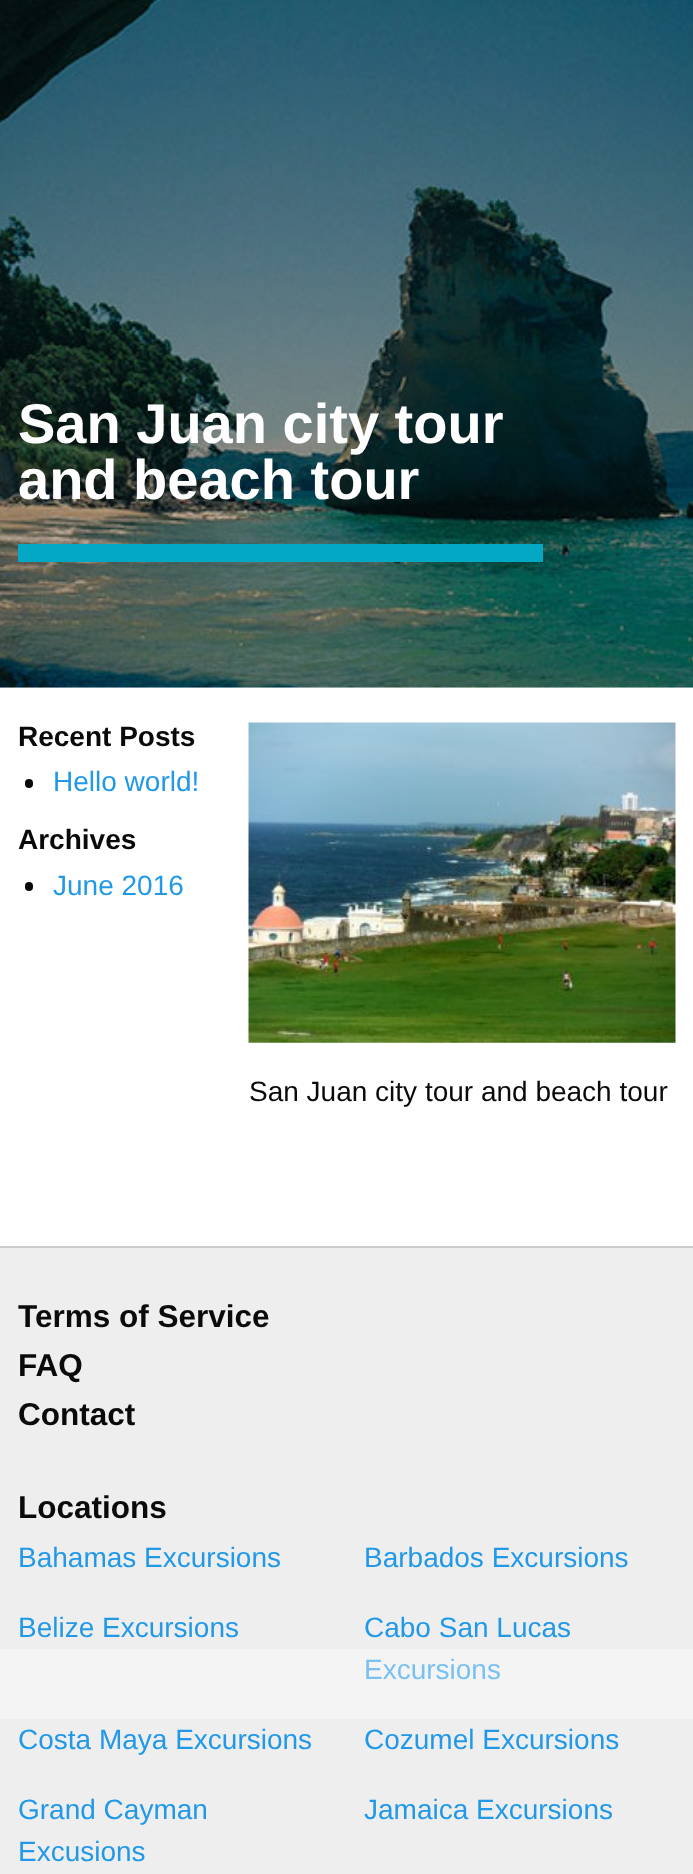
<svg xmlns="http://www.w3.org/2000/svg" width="693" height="1874">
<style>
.a{font:bold 56px Liberation Sans;fill:#fefefe}
.b{font:bold 28px Liberation Sans;fill:#0a0a0a}
.c{font:28px Liberation Sans;fill:#2199e8}
.d{font:28px Liberation Sans;fill:#0a0a0a}
.e{font:bold 31.5px Liberation Sans;fill:#0a0a0a}
.f{font:28px Liberation Sans;fill:#79c1f1}
</style>
<rect width="100%" height="100%" fill="#fff"/>
<image href="1.png" x="0" y="0" width="693" height="688"/>
<path fill="#02a8c4" d="M18 544h525v18H18z"/>
<rect fill="#0a0a0a" x="25" y="779" width="8" height="9" rx="4"/>
<rect fill="#0a0a0a" x="25" y="882" width="8" height="9" rx="4"/>
<image href="2.png" x="248" y="722" width="428" height="321"/>
<path fill="#eee" d="M0 1248h693v626H0z"/>
<path fill="#f4f4f4" d="M0 1649h693v70H0z"/>
<path fill="#ccc" d="M0 1246h693v2H0z"/>
<text class="a" x="18" y="443">San Juan city tour</text>
<text class="a" x="18" y="499">and beach tour</text>
<text class="b" x="18" y="746">Recent Posts</text>
<text class="c" x="53" y="791">Hello world!</text>
<text class="b" x="18" y="849">Archives</text>
<text class="c" x="53" y="895">June 2016</text>
<text class="d" x="249" y="1101">San Juan city tour and beach tour</text>
<text class="e" x="18" y="1327">Terms of Service</text>
<text class="e" x="18" y="1376">FAQ</text>
<text class="e" x="18" y="1425">Contact</text>
<text class="e" x="18" y="1518">Locations</text>
<text class="c" x="18" y="1567">Bahamas Excursions</text>
<text class="c" x="364" y="1567">Barbados Excursions</text>
<text class="c" x="18" y="1637">Belize Excursions</text>
<text class="c" x="364" y="1637">Cabo San Lucas</text>
<text class="f" x="364" y="1679">Excursions</text>
<text class="c" x="18" y="1749">Costa Maya Excursions</text>
<text class="c" x="364" y="1749">Cozumel Excursions</text>
<text class="c" x="18" y="1819">Grand Cayman</text>
<text class="c" x="18" y="1861">Excusions</text>
<text class="c" x="364" y="1819">Jamaica Excursions</text>
</svg>
